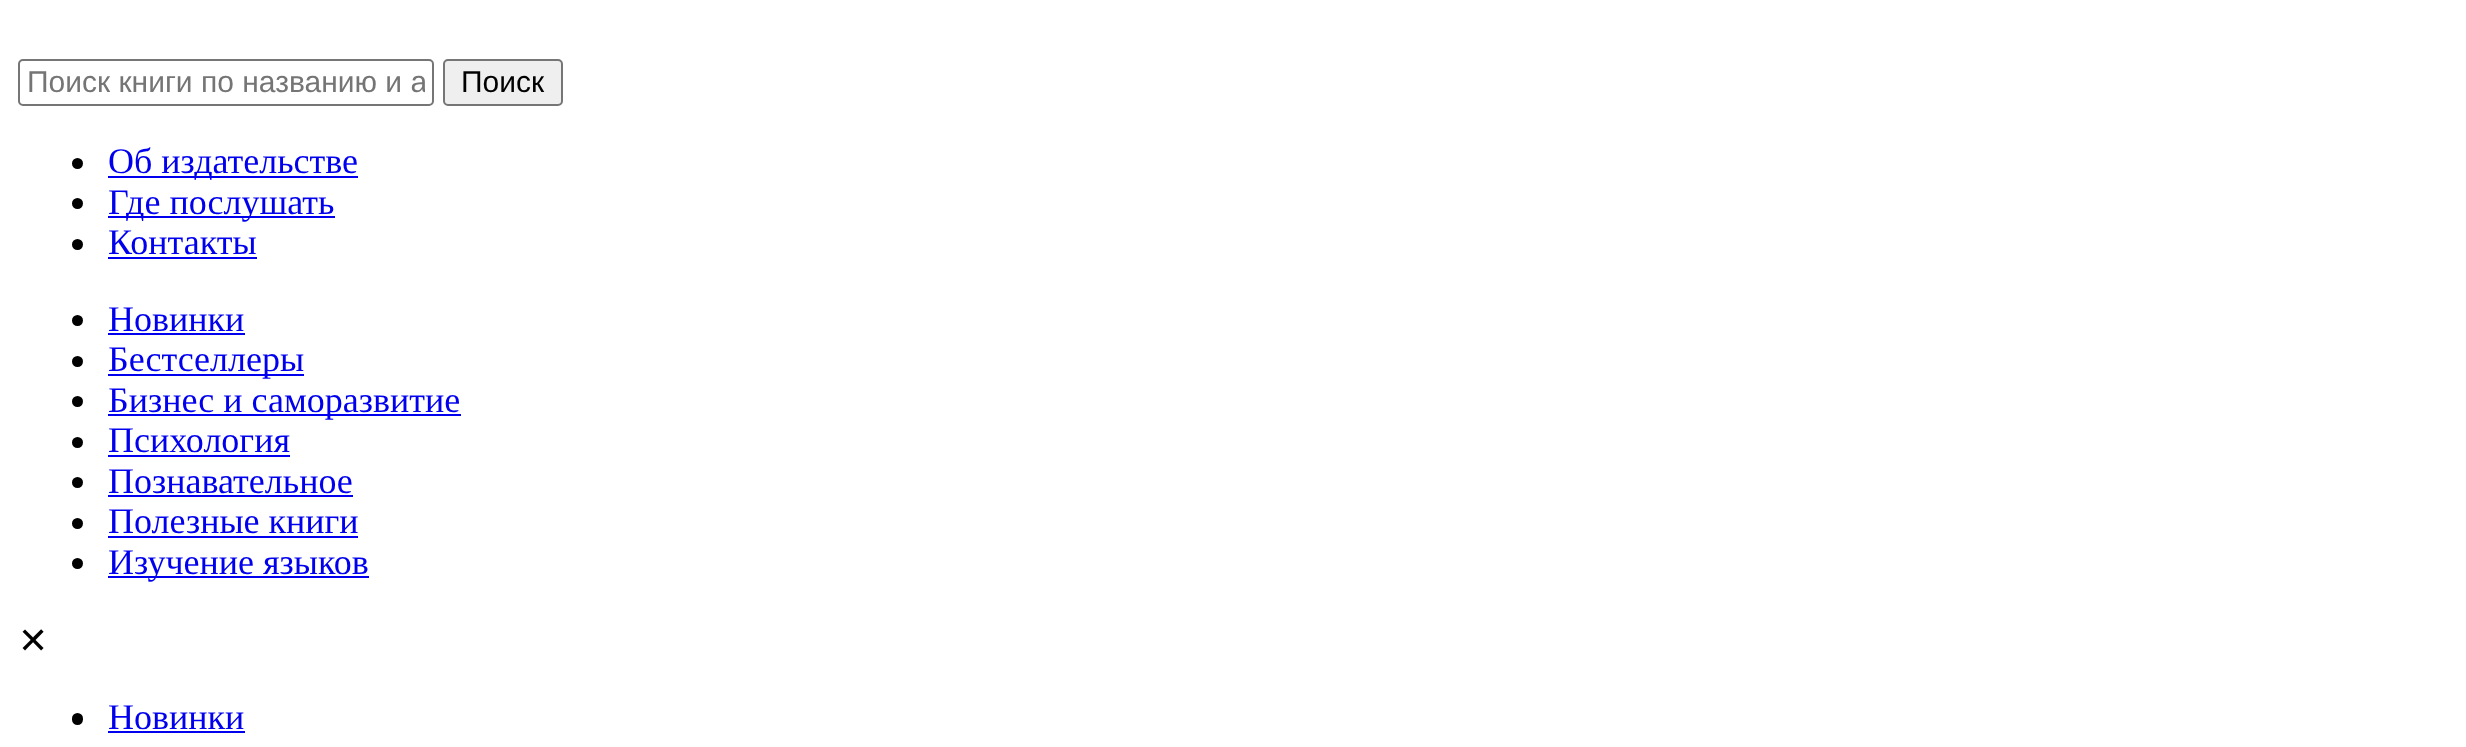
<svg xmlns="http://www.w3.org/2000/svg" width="2466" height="747">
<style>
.a{font:30px Liberation Sans;fill:#757575}
.b{font:30px Liberation Sans;fill:#000}
.c{font:36px Liberation Serif;fill:#00e}
.d{font:36px DejaVu Sans;fill:#000}
</style>
<defs>
<clipPath id="clip1"><path d="M27 65h398v34H27z"/></clipPath>
</defs>
<rect width="100%" height="100%" fill="#fff"/>
<rect fill="none" stroke="#767676" stroke-width="2" x="19" y="60" width="414" height="45" rx="4"/>
<rect fill="#efefef" stroke="#767676" stroke-width="2" x="444" y="60" width="118" height="45" rx="4"/>
<circle fill="#000" cx="77.5" cy="163.5" r="5.5"/>
<path fill="#00e" d="M108 176h250v2H108z"/>
<circle fill="#000" cx="77.5" cy="203.5" r="5.5"/>
<path fill="#00e" d="M108 216h227v2H108z"/>
<circle fill="#000" cx="77.5" cy="244.5" r="5.5"/>
<path fill="#00e" d="M108 257h149v2H108z"/>
<circle fill="#000" cx="77.5" cy="320.5" r="5.5"/>
<path fill="#00e" d="M108 333h137v2H108z"/>
<circle fill="#000" cx="77.5" cy="361.5" r="5.5"/>
<path fill="#00e" d="M108 374h196v2H108z"/>
<circle fill="#000" cx="77.5" cy="401.5" r="5.5"/>
<path fill="#00e" d="M108 414h353v2H108z"/>
<circle fill="#000" cx="77.5" cy="442.5" r="5.5"/>
<path fill="#00e" d="M108 455h182v2H108z"/>
<circle fill="#000" cx="77.5" cy="482.5" r="5.5"/>
<path fill="#00e" d="M108 495h245v2H108z"/>
<circle fill="#000" cx="77.5" cy="523.5" r="5.5"/>
<path fill="#00e" d="M108 536h250v2H108z"/>
<circle fill="#000" cx="77.5" cy="563.5" r="5.5"/>
<path fill="#00e" d="M108 576h261v2H108z"/>
<rect fill="#000" x="72" y="713" width="11" height="12" rx="5.5"/>
<path fill="#00e" d="M108 731h137v2H108z"/>
<g clip-path="url(#clip1)">
<text class="a" x="27" y="92">Поиск книги по названию и а</text>
</g>
<text class="b" x="461" y="92">Поиск</text>
<text class="c" x="108" y="173">Об издательстве</text>
<text class="c" x="108" y="214">Где послушать</text>
<text class="c" x="108" y="254">Контакты</text>
<text class="c" x="108" y="331">Новинки</text>
<text class="c" x="108" y="371">Бестселлеры</text>
<text class="c" x="108" y="412">Бизнес и саморазвитие</text>
<text class="c" x="108" y="452">Психология</text>
<text class="c" x="108" y="493">Познавательное</text>
<text class="c" x="108" y="533">Полезные книги</text>
<text class="c" x="108" y="574">Изучение языков</text>
<text class="d" x="18" y="653">✕</text>
<text class="c" x="108" y="729">Новинки</text>
</svg>
